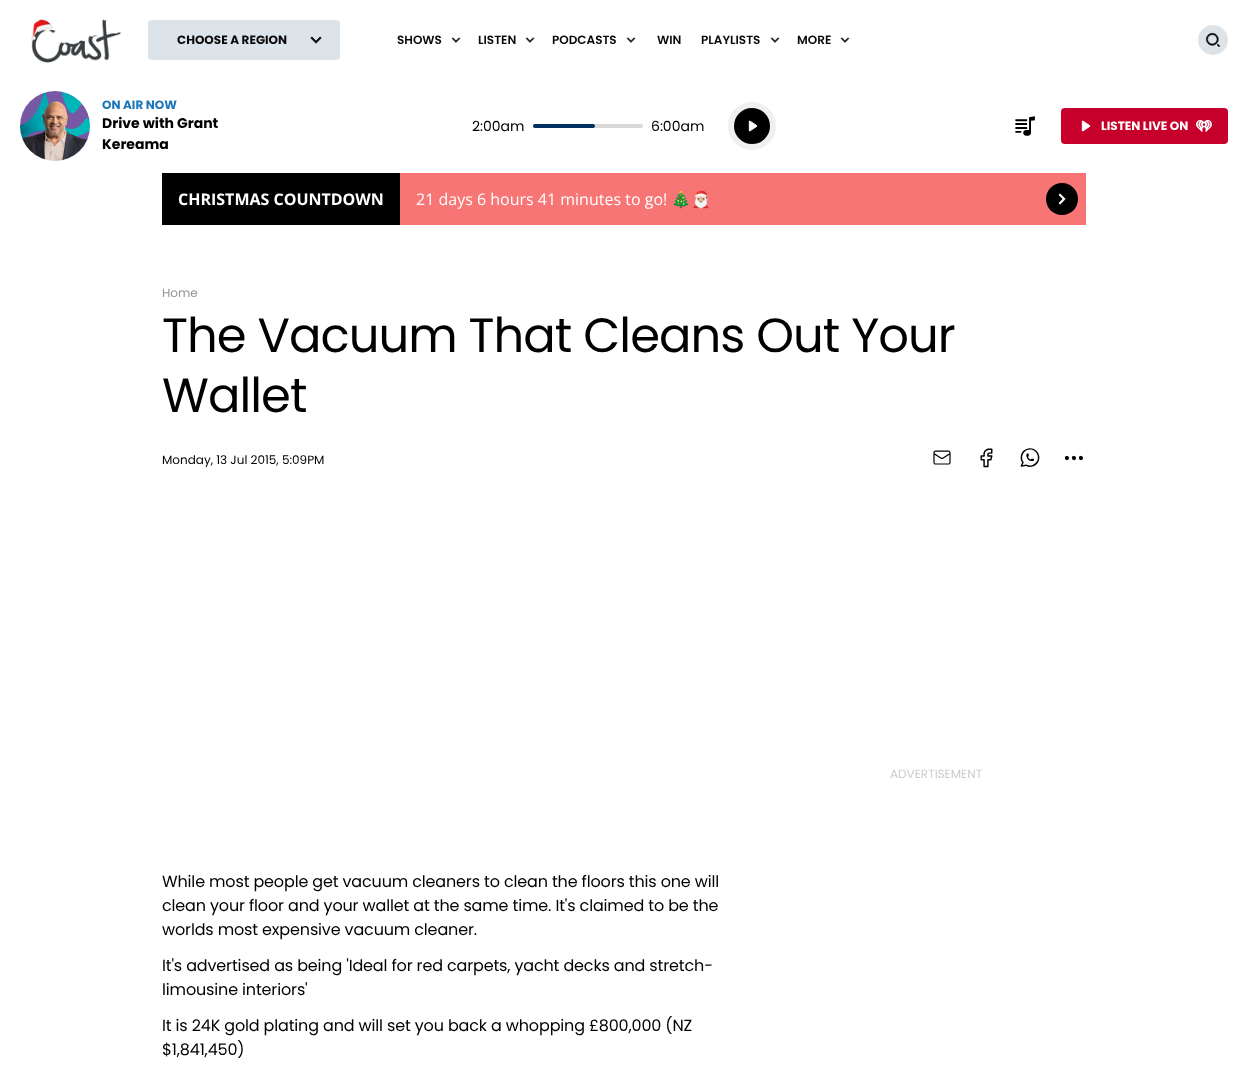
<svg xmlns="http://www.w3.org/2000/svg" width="1248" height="1079">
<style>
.a{font:bold 12px Poppins;fill:#0a0a0a}
.b{font:600 12px Poppins;fill:#0a0a0a}
.c{font:bold 12px Poppins;fill:#1b76bb}
.d{font:bold 14px Poppins;fill:#000}
.e{font:14px Poppins;fill:#000}
.f{font:bold 12px Poppins;fill:#fff}
.g{font:bold 16px Open Sans;fill:#fff}
.h{font:16px Open Sans;fill:#fff}
.i{font:16px Noto Color Emoji;fill:#fff}
.j{font:12px Poppins;fill:#949494}
.k{font:48px Poppins;letter-spacing:-0.95px;fill:#000}
.l{font:12px Poppins;fill:#000}
.m{font:12px Poppins;fill:#ccc}
.n{font:16px Poppins;letter-spacing:-0.15px;fill:#000}
</style>
<rect width="100%" height="100%" fill="#fff"/>
<image href="1.png" x="31" y="19" width="91" height="44"/>
<rect fill="#dde4e9" x="148" y="20" width="192" height="40" rx="4"/>
<image href="2.png" x="310" y="36" width="12" height="8"/>
<image href="3.png" x="451" y="37" width="10" height="6"/>
<image href="3.png" x="525" y="37" width="10" height="6"/>
<image href="3.png" x="626" y="37" width="10" height="6"/>
<image href="3.png" x="770" y="37" width="10" height="6"/>
<image href="3.png" x="840" y="37" width="10" height="6"/>
<circle fill="#dde4e9" cx="1213" cy="40" r="15"/>
<image href="4.png" x="1205" y="32" width="16" height="15"/>
<image href="5.png" x="20" y="91" width="70" height="70"/>
<rect fill="#d9d9d9" x="533" y="124" width="110" height="4" rx="2"/>
<rect fill="#002f61" x="533" y="124" width="62" height="4" rx="2"/>
<circle fill="#000" stroke="#f0f0f0" stroke-width="6" cx="752" cy="126" r="21"/>
<image href="6.png" x="748" y="120" width="10" height="12"/>
<image href="7.png" x="1015" y="116" width="20" height="20"/>
<rect fill="#c7002b" x="1061" y="108" width="167" height="36" rx="4"/>
<image href="8.png" x="1081" y="120" width="10" height="12"/>
<image href="9.png" x="1196" y="120" width="16" height="12"/>
<path fill="#f87575" d="M400 173h686v52H400z"/>
<path fill="#000" d="M162 173h238v52H162z"/>
<path fill="#000" d="M1046 199c0-9 7-16 16-16c9 0 16 7 16 16c0 9-7 16-16 16c-9 0-16-7-16-16z"/>
<image href="10.png" x="1058" y="193" width="8" height="12"/>
<image href="11.png" x="933" y="450" width="18" height="15"/>
<image href="12.png" x="980" y="448" width="13" height="20"/>
<image href="13.png" x="1020" y="448" width="20" height="19"/>
<image href="14.png" x="1064" y="455" width="19" height="6"/>
<text class="a" x="177" y="44">CHOOSE A REGION</text>
<text class="b" x="397" y="44">SHOWS</text>
<text class="b" x="478" y="44">LISTEN</text>
<text class="b" x="552" y="44">PODCASTS</text>
<text class="b" x="657" y="44">WIN</text>
<text class="b" x="701" y="44">PLAYLISTS</text>
<text class="b" x="797" y="44">MORE</text>
<text class="c" x="102" y="109">ON AIR NOW</text>
<text class="d" x="102" y="128">Drive with Grant</text>
<text class="d" x="102" y="149">Kereama</text>
<text class="e" x="472" y="131">2:00am</text>
<text class="e" x="651" y="131">6:00am</text>
<text class="f" x="1101" y="130">LISTEN LIVE ON</text>
<text class="g" x="178" y="205">CHRISTMAS COUNTDOWN</text>
<text class="h" x="416" y="205">21 days 6 hours 41 minutes to go!</text>
<text class="i" x="671" y="205">🎄🎅🏼</text>
<text class="j" x="162" y="297">Home</text>
<text class="k" x="162" y="352">The Vacuum That Cleans Out Your</text>
<text class="k" x="162" y="412">Wallet</text>
<text class="l" x="162" y="464">Monday, 13 Jul 2015, 5:09PM</text>
<text class="m" x="890" y="778">ADVERTISEMENT</text>
<text class="n" x="162" y="887">While most people get vacuum cleaners to clean the floors this one will</text>
<text class="n" x="162" y="911">clean your floor and your wallet at the same time. It's claimed to be the</text>
<text class="n" x="162" y="935">worlds most expensive vacuum cleaner.</text>
<text class="n" x="162" y="971">It's advertised as being 'Ideal for red carpets, yacht decks and stretch-</text>
<text class="n" x="162" y="995">limousine interiors'</text>
<text class="n" x="162" y="1031">It is 24K gold plating and will set you back a whopping £800,000 (NZ</text>
<text class="n" x="162" y="1055">$1,841,450)</text>
</svg>
